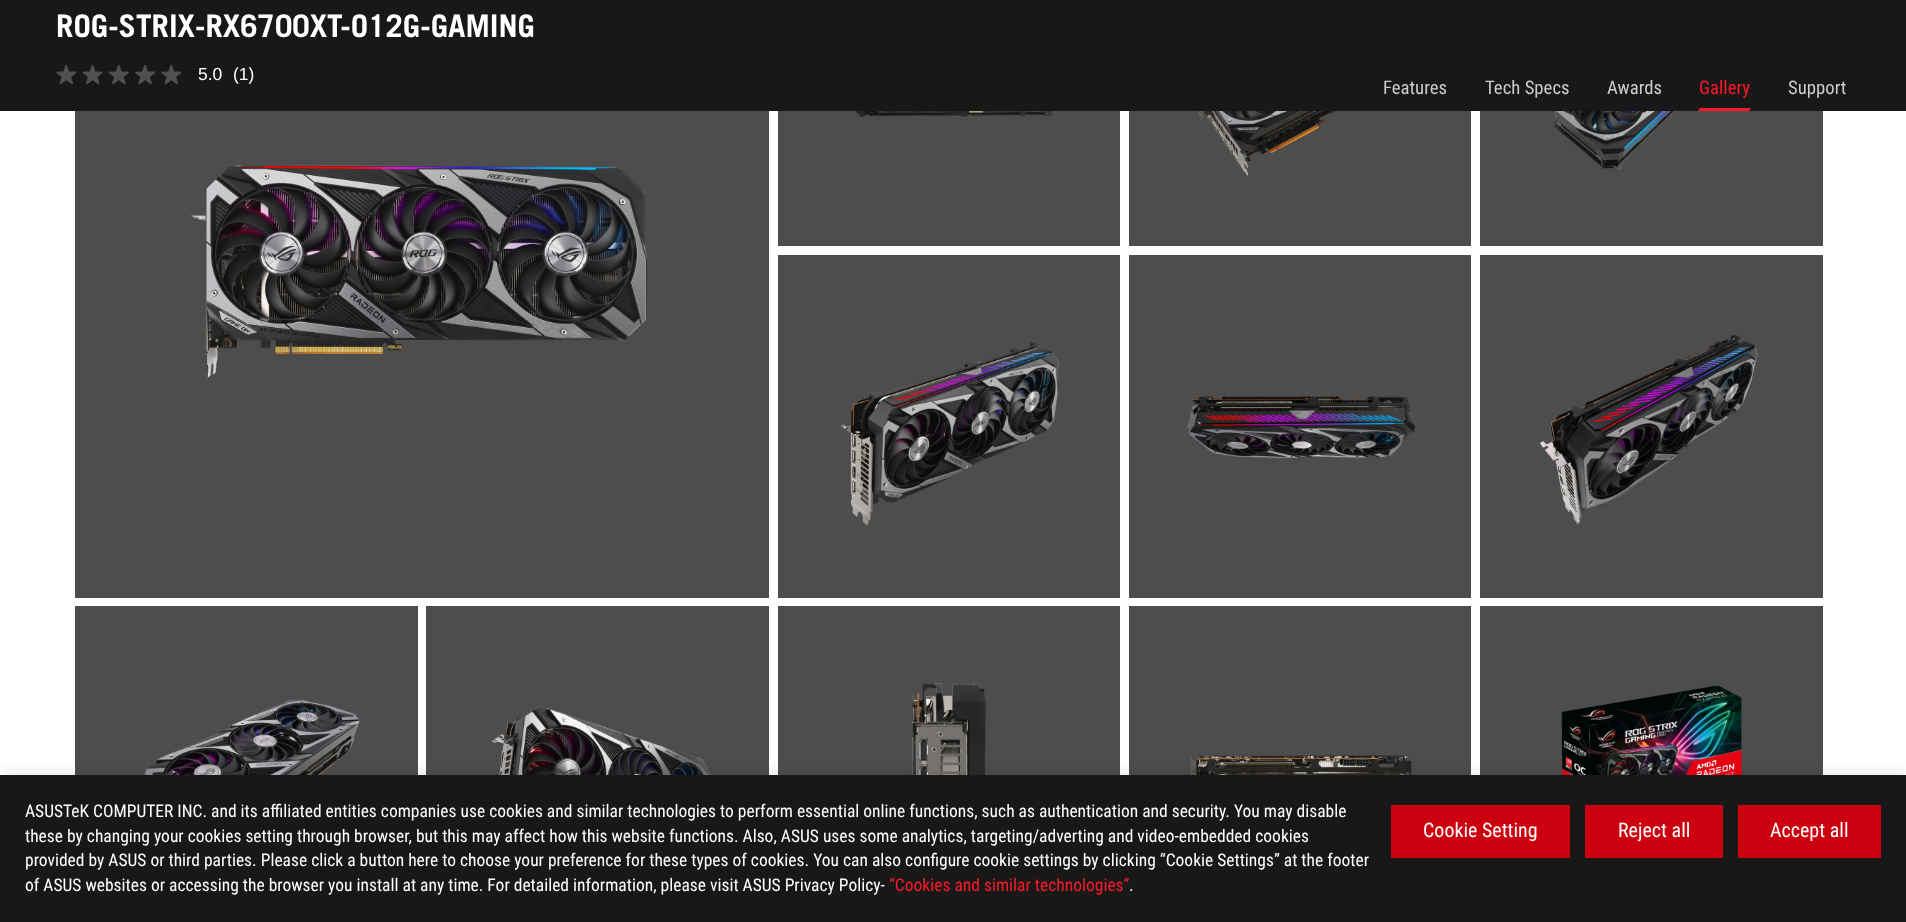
<svg xmlns="http://www.w3.org/2000/svg" width="1906" height="922">
<style>
.a{font:bold 31.25px Trade Gothic;fill:#fff}
.b{font:17.5px Liberation Sans;fill:#fff}
.c{font:18.75px Roboto Condensed;fill:#ccc}
.d{font:18.75px Roboto Condensed;fill:#ff1929}
.e{font:17.5px Roboto Condensed;fill:#fff}
.f{font:17.5px Roboto Condensed;fill:#ff1929}
.g{font:20px Roboto Condensed;fill:#fff}
</style>
<rect width="100%" height="100%" fill="#fff"/>
<path fill="#181818" d="M0 0h1906v111H0z"/>
<image href="1.png" x="56" y="65" width="21" height="20"/>
<image href="2.png" x="82" y="65" width="21" height="20"/>
<image href="3.png" x="108" y="65" width="21" height="20"/>
<image href="4.png" x="135" y="65" width="20" height="20"/>
<image href="1.png" x="161" y="65" width="21" height="20"/>
<path fill="#ff1929" d="M1700 108h51l-2 3h-51z"/>
<path fill="#4d4d4d" d="M75 111h694v487H75z"/>
<image href="5.png" x="191" y="165" width="457" height="213"/>
<path fill="#4d4d4d" d="M778 111h342v135H778z"/>
<image href="6.png" x="854" y="111" width="199" height="7"/>
<path fill="#4d4d4d" d="M1129 111h342v135H1129z"/>
<image href="7.png" x="1199" y="111" width="137" height="65"/>
<path fill="#4d4d4d" d="M1480 111h343v135H1480z"/>
<image href="8.png" x="1553" y="111" width="123" height="59"/>
<path fill="#4d4d4d" d="M778 255h342v343H778z"/>
<image href="9.png" x="840" y="341" width="220" height="185"/>
<path fill="#4d4d4d" d="M1129 255h342v343H1129z"/>
<image href="10.png" x="1187" y="396" width="228" height="62"/>
<path fill="#4d4d4d" d="M1480 255h343v343H1480z"/>
<image href="11.png" x="1539" y="334" width="219" height="191"/>
<path fill="#4d4d4d" d="M75 606h343v169H75z"/>
<image href="12.png" x="144" y="700" width="216" height="75"/>
<path fill="#4d4d4d" d="M426 606h343v169H426z"/>
<image href="13.png" x="491" y="705" width="220" height="70"/>
<path fill="#4d4d4d" d="M778 606h342v169H778z"/>
<image href="14.png" x="911" y="683" width="76" height="92"/>
<path fill="#4d4d4d" d="M1129 606h342v169H1129z"/>
<image href="15.png" x="1190" y="755" width="222" height="20"/>
<path fill="#4d4d4d" d="M1480 606h343v169H1480z"/>
<image href="16.png" x="1561" y="685" width="181" height="90"/>
<path fill="#0000001a" filter="blur(7.5px)" d="M1 773h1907v147H1z"/>
<path fill="#181818" d="M0 775h1906v147H0z"/>
<path fill="#cc000e" d="M1391 805h179v53H1391z"/>
<path fill="#cc000e" d="M1585 805h138v53H1585z"/>
<path fill="#cc000e" d="M1738 805h143v53H1738z"/>
<text class="a" x="56" y="37">ROG-STRIX-RX6700XT-O12G-GAMING</text>
<text class="b" x="198" y="80">5.0</text>
<text class="b" x="233" y="80">(1)</text>
<text class="c" x="1383" y="94">Features</text>
<text class="c" x="1485" y="94">Tech Specs</text>
<text class="c" x="1607" y="94">Awards</text>
<text class="d" x="1699" y="94">Gallery</text>
<text class="c" x="1788" y="94">Support</text>
<text class="e" x="25" y="817">ASUSTeK COMPUTER INC. and its affiliated entities companies use cookies and similar technologies to perform essential online functions, such as authentication and security. You may disable</text>
<text class="e" x="25" y="842">these by changing your cookies setting through browser, but this may affect how this website functions. Also, ASUS uses some analytics, targeting/adverting and video-embedded cookies</text>
<text class="e" x="25" y="866">provided by ASUS or third parties. Please click a button here to choose your preference for these types of cookies. You can also configure cookie settings by clicking “Cookie Settings” at the footer</text>
<text class="e" x="25" y="891">of ASUS websites or accessing the browser you install at any time. For detailed information, please visit ASUS Privacy Policy-</text>
<text class="f" x="889" y="891">“Cookies and similar technologies”</text>
<text class="e" x="1129" y="891">.</text>
<text class="g" x="1423" y="837">Cookie Setting</text>
<text class="g" x="1618" y="837">Reject all</text>
<text class="g" x="1770" y="837">Accept all</text>
</svg>
